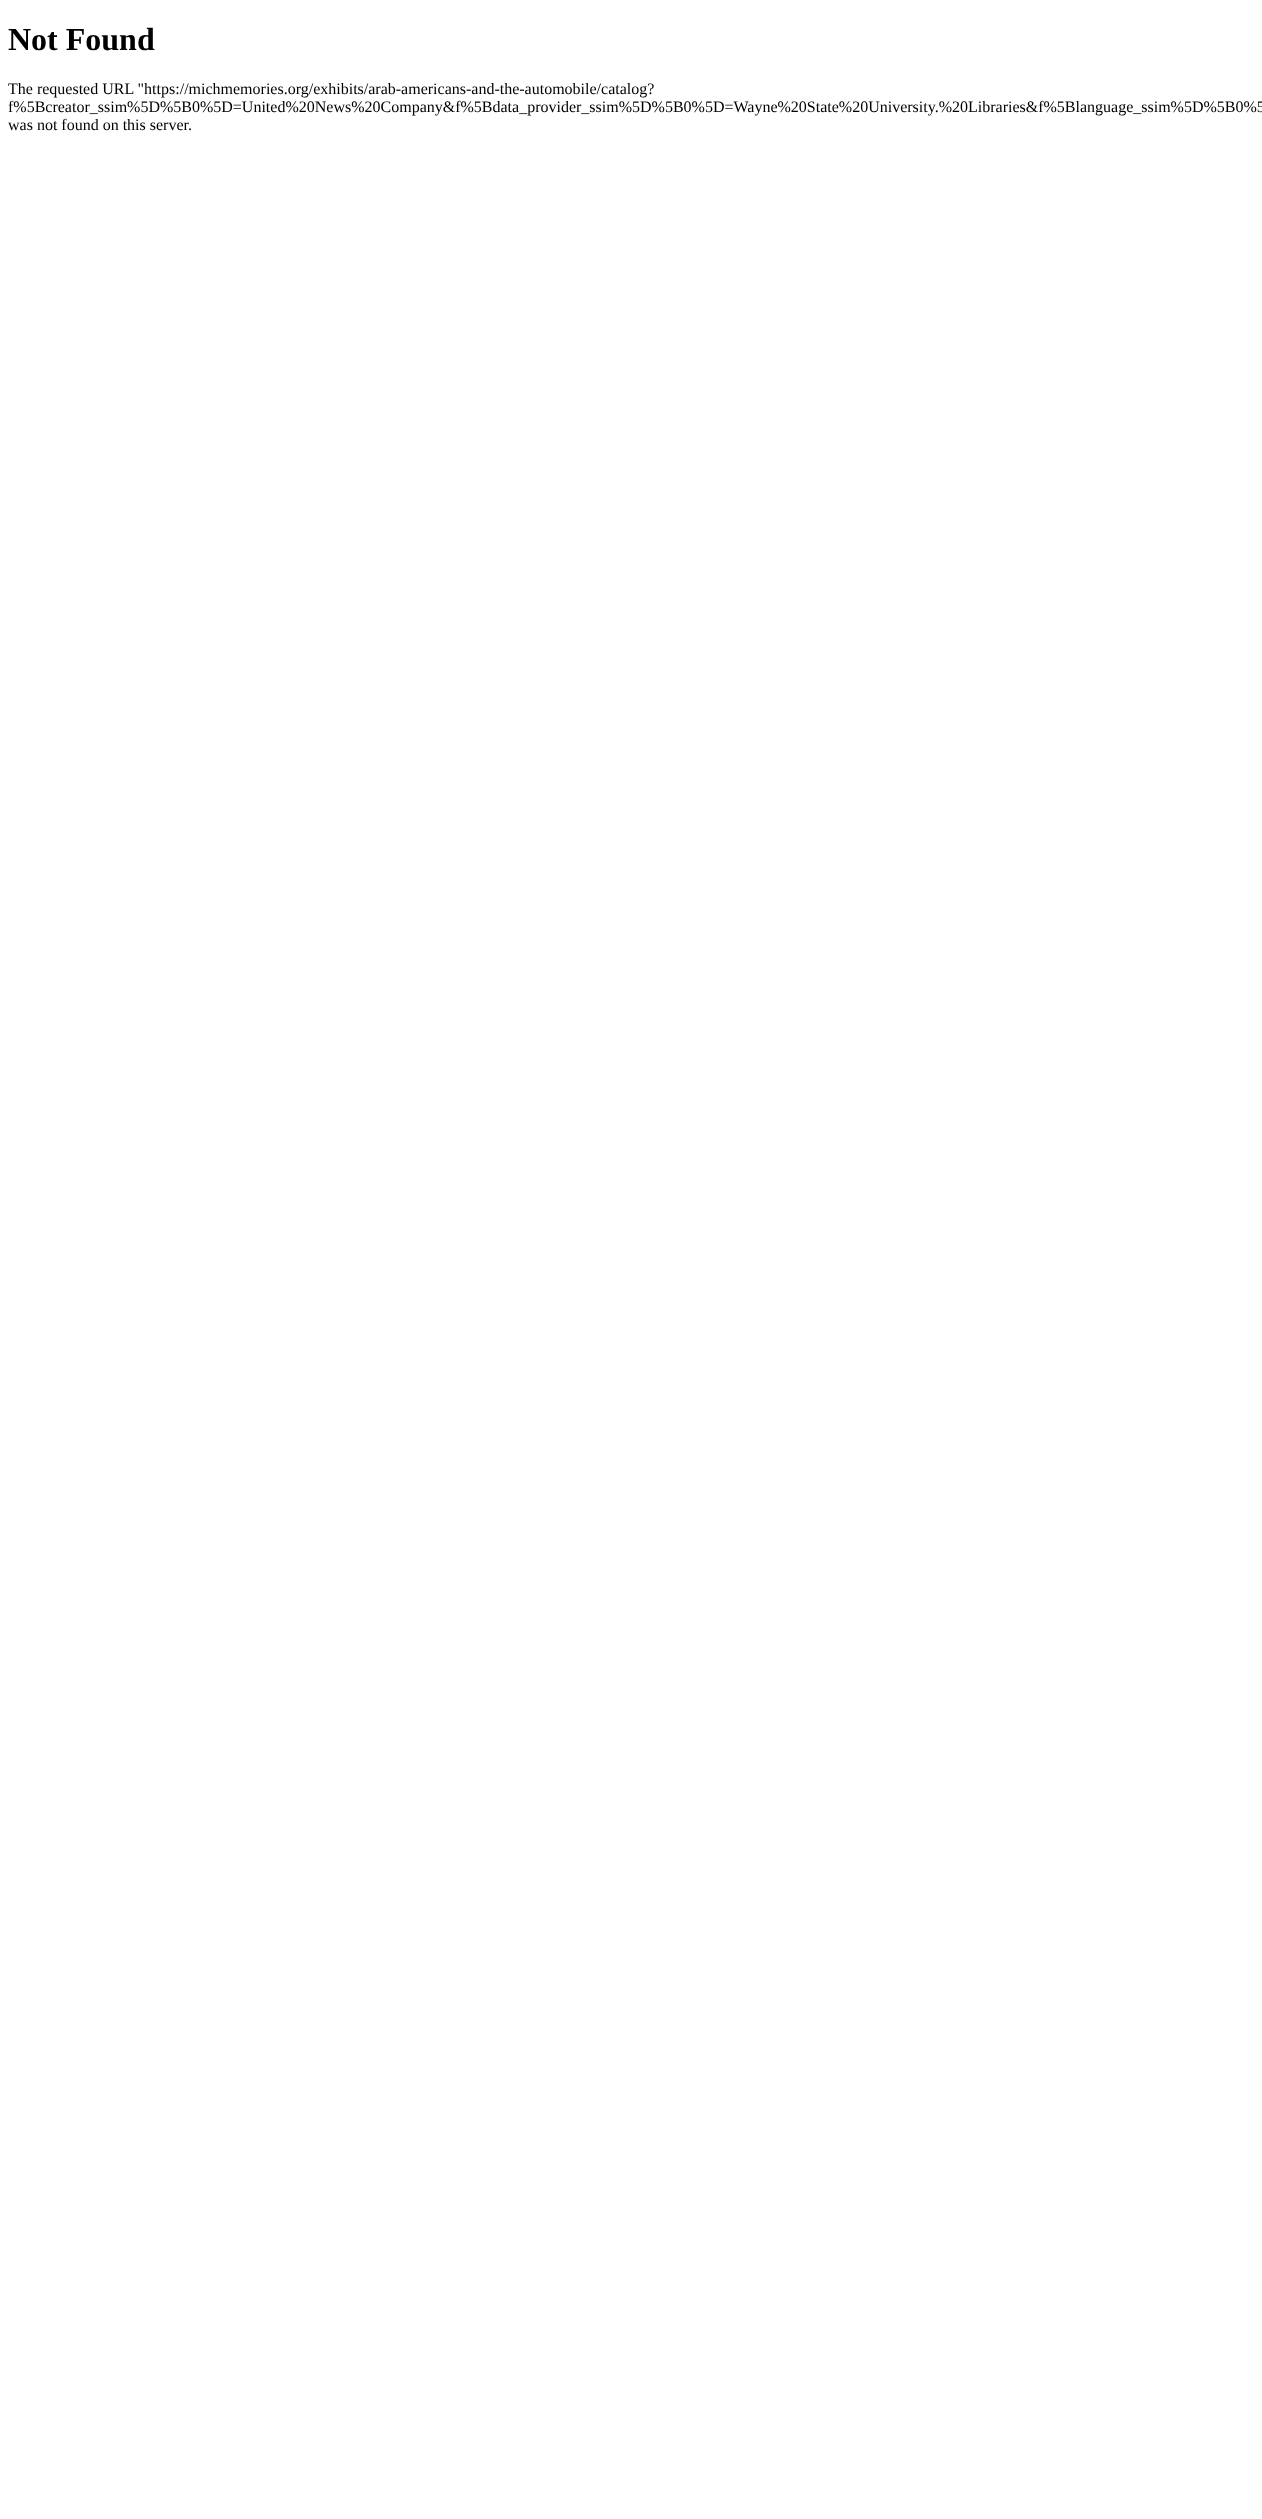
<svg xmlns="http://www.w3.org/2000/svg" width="1262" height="2519">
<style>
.a{font:bold 32px Liberation Serif;fill:#000}
.b{font:16px Liberation Serif;fill:#000}
</style>
<rect width="100%" height="100%" fill="#fff"/>
<text class="a" x="8" y="50">Not Found</text>
<text class="b" x="8" y="94">The requested URL "https://michmemories.org/exhibits/arab-americans-and-the-automobile/catalog?</text>
<text class="b" x="8" y="112">f%5Bcreator_ssim%5D%5B0%5D=United%20News%20Company&amp;f%5Bdata_provider_ssim%5D%5B0%5D=Wayne%20State%20University.%20Libraries&amp;f%5Blanguage_ssim%5D%5B0%5</text>
<text class="b" x="8" y="130">was not found on this server.</text>
</svg>
